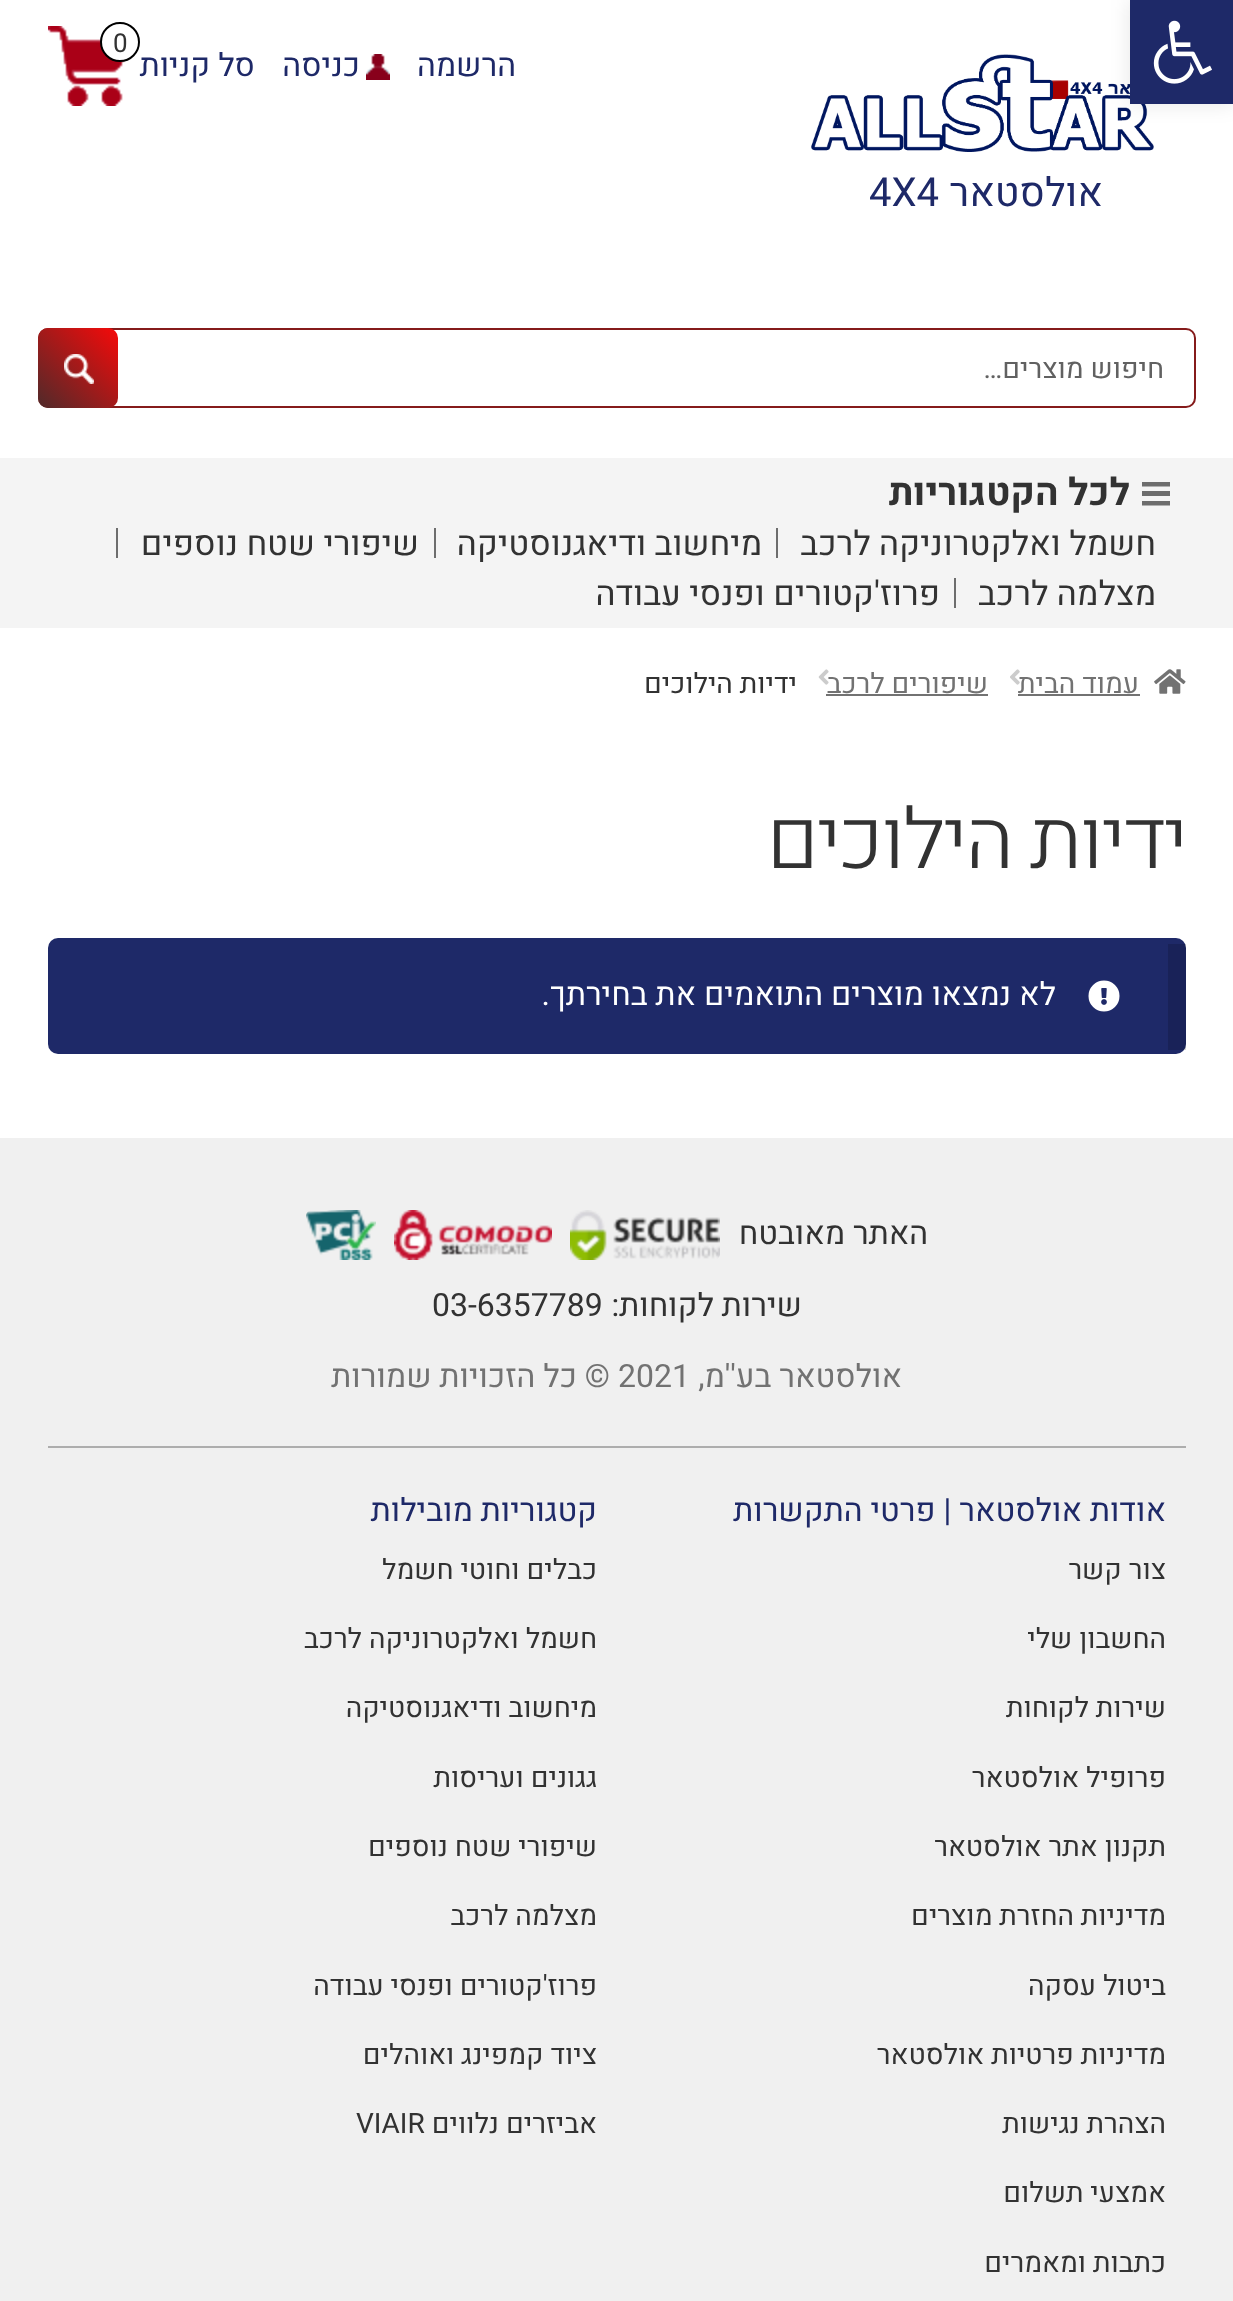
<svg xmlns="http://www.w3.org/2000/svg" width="1233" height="2301">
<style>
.a{font:26px Heebo;fill:#323232}
.b{font:40px Heebo;direction:rtl;fill:#1e2968}
.c{font:40px Heebo;fill:#1e2968}
.d{font:32px Heebo;direction:rtl;fill:#1e2968}
.e{font:28px Heebo;direction:rtl;fill:#616161}
.f{font:bold 38px Heebo;direction:rtl;fill:#323232}
.g{font:34px Heebo;direction:rtl;fill:#323232}
.h{font:28px Heebo;direction:rtl;fill:#727272}
.i{font:28px Heebo;direction:rtl;fill:#323232}
.j{font:300 83.75px Heebo;letter-spacing:-2px;direction:rtl;fill:#323232}
.k{font:32px Heebo;direction:rtl;fill:#fff}
.l{font:32px Heebo;direction:rtl;fill:#323232}
.m{font:32px Heebo;fill:#323232}
.n{font:32px Heebo;direction:rtl;fill:#727272}
.o{font:32px Heebo;fill:#727272}
.p{font:28px Heebo;fill:#323232}
</style>
<defs>
<linearGradient id="g1" gradientUnits="userSpaceOnUse" x1="38" y1="408" x2="118" y2="328"><stop offset="0" stop-color="#4f2a2a"/><stop offset="1" stop-color="#f60a0a"/></linearGradient>
</defs>
<rect width="100%" height="100%" fill="#fff"/>
<image href="3.png" x="811" y="54" width="343" height="98"/>
<path fill="#0000001a" filter="blur(10px)" d="M1130 0h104v104H1130z"/>
<path fill="#1e2968" d="M1130 0h103v104H1130z"/>
<image href="1.png" x="1153" y="20" width="59" height="64"/>
<image href="2.png" x="48" y="26" width="77" height="80"/>
<circle fill="#fff" stroke="#000" stroke-width="2" cx="120" cy="42" r="19"/>
<image href="4.png" x="366" y="54" width="24" height="26"/>
<rect fill="none" stroke="#851b1b" stroke-width="2" x="39" y="329" width="1156" height="78" rx="9"/>
<rect fill="url(#g1)" x="38" y="328" width="80" height="80" rx="10"/>
<image href="5.png" x="64" y="354" width="30" height="30"/>
<path fill="#f4f4f4" d="M0 458h1233v170H0z"/>
<path fill="#6d6d6d" fill-rule="evenodd" d="M1142 482v4.5h28v-4.5zm28 9h-28v5h28zm0 10h-28v4.5h28z"/>
<path fill="#6d6d6d" d="M776 528h2v30H776z"/>
<path fill="#6d6d6d" d="M434 528h2v30H434z"/>
<path fill="#6d6d6d" d="M116 528h2v30H116z"/>
<path fill="#6d6d6d" d="M954 578h2v30H954z"/>
<image href="6.png" x="1154" y="669" width="32" height="25"/>
<path fill="#727272" d="M1018 694h122v2H1018z"/>
<path fill="#727272" d="M826 694h162v2H826z"/>
<rect fill="#1e2968" x="48" y="938" width="1138" height="116" rx="10"/>
<path fill="#00000026" d="M1168 944h18v106H1168z"/>
<image href="9.png" x="1088" y="980" width="32" height="32"/>
<path fill="#f0f0f0" d="M0 1138h1233v1163H0z"/>
<path fill="#adadad" d="M48 1446h1138v2H48z"/>
<image href="10.png" x="570" y="1210" width="150" height="50"/>
<image href="11.png" x="394" y="1210" width="158" height="50"/>
<image href="12.png" x="306" y="1210" width="70" height="50"/>
<text class="a" x="113" y="52">0</text>
<text class="b" x="1103" y="206">אולסטאר</text>
<text class="c" x="869" y="206">4X4</text>
<text class="d" x="516" y="76">הרשמה</text>
<text class="d" x="360" y="76">כניסה</text>
<text class="d" x="255" y="76">סל קניות</text>
<text class="e" x="1164" y="378">חיפוש מוצרים…</text>
<text class="f" x="1130" y="505">לכל הקטגוריות</text>
<text class="g" x="1156" y="555">חשמל ואלקטרוניקה לרכב</text>
<text class="g" x="762" y="555">מיחשוב ודיאגנוסטיקה</text>
<text class="g" x="419" y="555">שיפורי שטח נוספים</text>
<text class="g" x="1156" y="605">מצלמה לרכב</text>
<text class="g" x="940" y="605">פרוז'קטורים ופנסי עבודה</text>
<text class="h" x="1139" y="693">עמוד הבית</text>
<image href="7.png" x="1010" y="669" width="10" height="16"/>
<text class="h" x="988" y="693">שיפורים לרכב</text>
<image href="8.png" x="818" y="669" width="11" height="16"/>
<text class="i" x="797" y="693">ידיות הילוכים</text>
<text class="j" x="1186" y="868">ידיות הילוכים</text>
<text class="k" x="1056" y="1005">לא נמצאו מוצרים התואמים את בחירתך.</text>
<text class="l" x="928" y="1244">האתר מאובטח</text>
<text class="l" x="802" y="1316">שירות לקוחות:</text>
<text class="m" x="432" y="1316">03-6357789</text>
<text class="n" x="902" y="1387">אולסטאר בע''מ,</text>
<text class="o" x="618" y="1387">2021</text>
<text class="n" x="610" y="1387">© כל הזכויות שמורות</text>
<text class="d" x="1166" y="1521">אודות אולסטאר | פרטי התקשרות</text>
<text class="i" x="1166" y="1579">צור קשר</text>
<text class="i" x="1166" y="1648">החשבון שלי</text>
<text class="i" x="1166" y="1717">שירות לקוחות</text>
<text class="i" x="1166" y="1787">פרופיל אולסטאר</text>
<text class="i" x="1166" y="1856">תקנון אתר אולסטאר</text>
<text class="i" x="1166" y="1925">מדיניות החזרת מוצרים</text>
<text class="i" x="1166" y="1995">ביטול עסקה</text>
<text class="i" x="1166" y="2064">מדיניות פרטיות אולסטאר</text>
<text class="i" x="1166" y="2133">הצהרת נגישות</text>
<text class="i" x="1166" y="2202">אמצעי תשלום</text>
<text class="i" x="1166" y="2272">כתבות ומאמרים</text>
<text class="d" x="597" y="1521">קטגוריות מובילות</text>
<text class="i" x="597" y="1579">כבלים וחוטי חשמל</text>
<text class="i" x="597" y="1648">חשמל ואלקטרוניקה לרכב</text>
<text class="i" x="597" y="1717">מיחשוב ודיאגנוסטיקה</text>
<text class="i" x="597" y="1787">גגונים ועריסות</text>
<text class="i" x="597" y="1856">שיפורי שטח נוספים</text>
<text class="i" x="597" y="1925">מצלמה לרכב</text>
<text class="i" x="597" y="1995">פרוז'קטורים ופנסי עבודה</text>
<text class="i" x="597" y="2064">ציוד קמפינג ואוהלים</text>
<text class="i" x="597" y="2133">אביזרים נלווים</text>
<text class="p" x="356" y="2133">VIAIR</text>
</svg>
